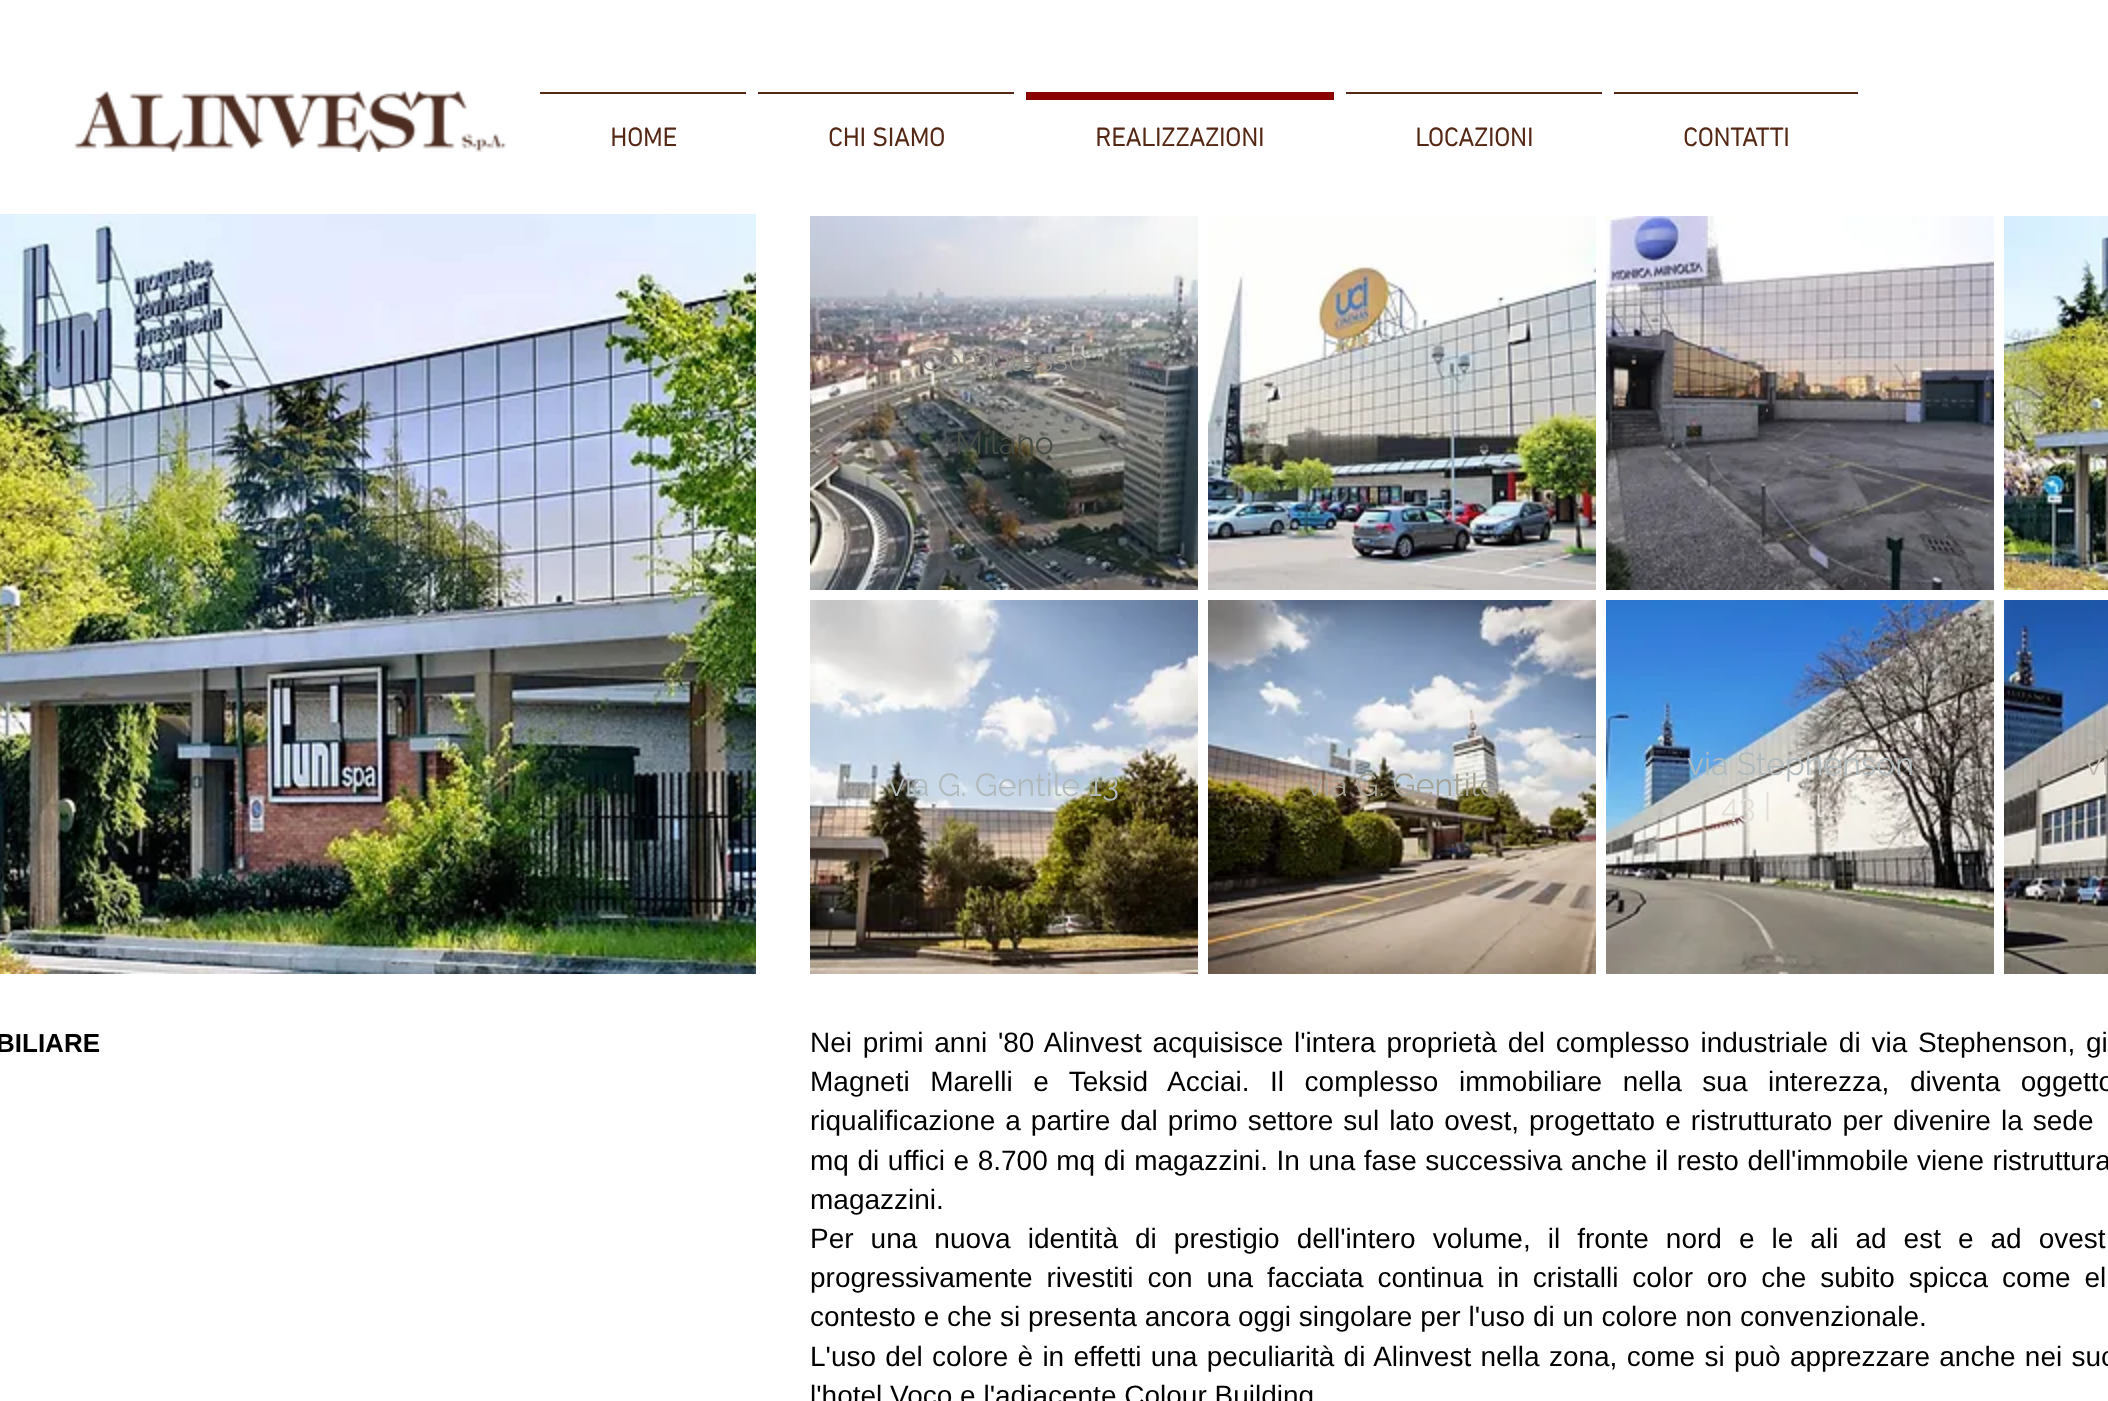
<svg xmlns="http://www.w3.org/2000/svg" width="2108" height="1401">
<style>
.a{font:bold 26px 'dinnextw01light';fill:#552715}
.b{font:32px Raleway;fill:#928e8a}
.c{font:32px Raleway;fill:#484d47}
.d{font:32px Raleway;fill:#696464}
.e{font:32px Raleway;fill:#b0babd}
.f{font:32px Raleway;fill:#e3ded7}
.g{font:32px Raleway;fill:#bdb7b0}
.h{font:32px Raleway;fill:#a4a195}
.i{font:bold 26px Liberation Sans;fill:#000}
.j{font:28px Liberation Sans;fill:#000}
</style>
<rect width="100%" height="100%" fill="#fff"/>
<image href="1.png" x="74" y="90" width="433" height="62"/>
<path fill="#552715" d="M540 92h206v2H540z"/>
<path fill="#552715" d="M758 92h256v2H758z"/>
<path fill="#8b0000" d="M1026 92h308v8H1026z"/>
<path fill="#552715" d="M1346 92h256v2H1346z"/>
<path fill="#552715" d="M1614 92h244v2H1614z"/>
<image href="2.png" x="0" y="214" width="756" height="760"/>
<image href="3.png" x="810" y="216" width="388" height="374"/>
<image href="4.png" x="1208" y="216" width="388" height="374"/>
<image href="5.png" x="1606" y="216" width="388" height="374"/>
<image href="6.png" x="2004" y="216" width="104" height="374"/>
<image href="7.png" x="1606" y="600" width="388" height="374"/>
<image href="8.png" x="2004" y="600" width="104" height="374"/>
<image href="9.png" x="810" y="600" width="388" height="374"/>
<image href="10.png" x="1208" y="600" width="388" height="374"/>
<text class="a" x="610" y="146">HOME</text>
<text class="a" x="828" y="146">CHI SIAMO</text>
<text class="a" x="1095" y="146">REALIZZAZIONI</text>
<text class="a" x="1415" y="146">LOCAZIONI</text>
<text class="a" x="1683" y="146">CONTATTI</text>
<text class="b" x="920" y="371">Complesso</text>
<text class="c" x="955" y="454">Milano</text>
<text class="d" x="1764" y="412">.</text>
<text class="e" x="1687" y="775">via Stephenson</text>
<text class="f" x="1721" y="817">43 |</text>
<text class="f" x="1815" y="817">l</text>
<text class="g" x="2085" y="775">vi</text>
<text class="e" x="888" y="796">via G. Gentile 13</text>
<text class="h" x="1306" y="796">via G. Gentile</text>
<text class="i" x="-4" y="1052" word-spacing="58">BILIARE</text>
<text class="j" x="810" y="1052" word-spacing="3">Nei primi anni '80 Alinvest acquisisce l'intera proprietà del complesso industriale di via Stephenson, gi</text>
<text class="j" x="810" y="1091" word-spacing="12.75">Magneti Marelli e Teksid Acciai. Il complesso immobiliare nella sua interezza, diventa oggetto</text>
<text class="j" x="810" y="1130" word-spacing="2.25">riqualificazione a partire dal primo settore sul lato ovest, progettato e ristrutturato per divenire la sede</text>
<text class="j" x="810" y="1170" word-spacing="0.8">mq di uffici e 8.700 mq di magazzini. In una fase successiva anche il resto dell'immobile viene ristruttura</text>
<text class="j" x="810" y="1209">magazzini.</text>
<text class="j" x="810" y="1248" word-spacing="9.25">Per una nuova identità di prestigio dell'intero volume, il fronte nord e le ali ad est e ad ovest</text>
<text class="j" x="810" y="1287" word-spacing="6.1">progressivamente rivestiti con una facciata continua in cristalli color oro che subito spicca come el</text>
<text class="j" x="810" y="1326">contesto e che si presenta ancora oggi singolare per l'uso di un colore non convenzionale.</text>
<text class="j" x="810" y="1366" word-spacing="1.5">L'uso del colore è in effetti una peculiarità di Alinvest nella zona, come si può apprezzare anche nei suc</text>
<text class="j" x="810" y="1405">l'hotel Voco e l'adiacente Colour Building</text>
</svg>
